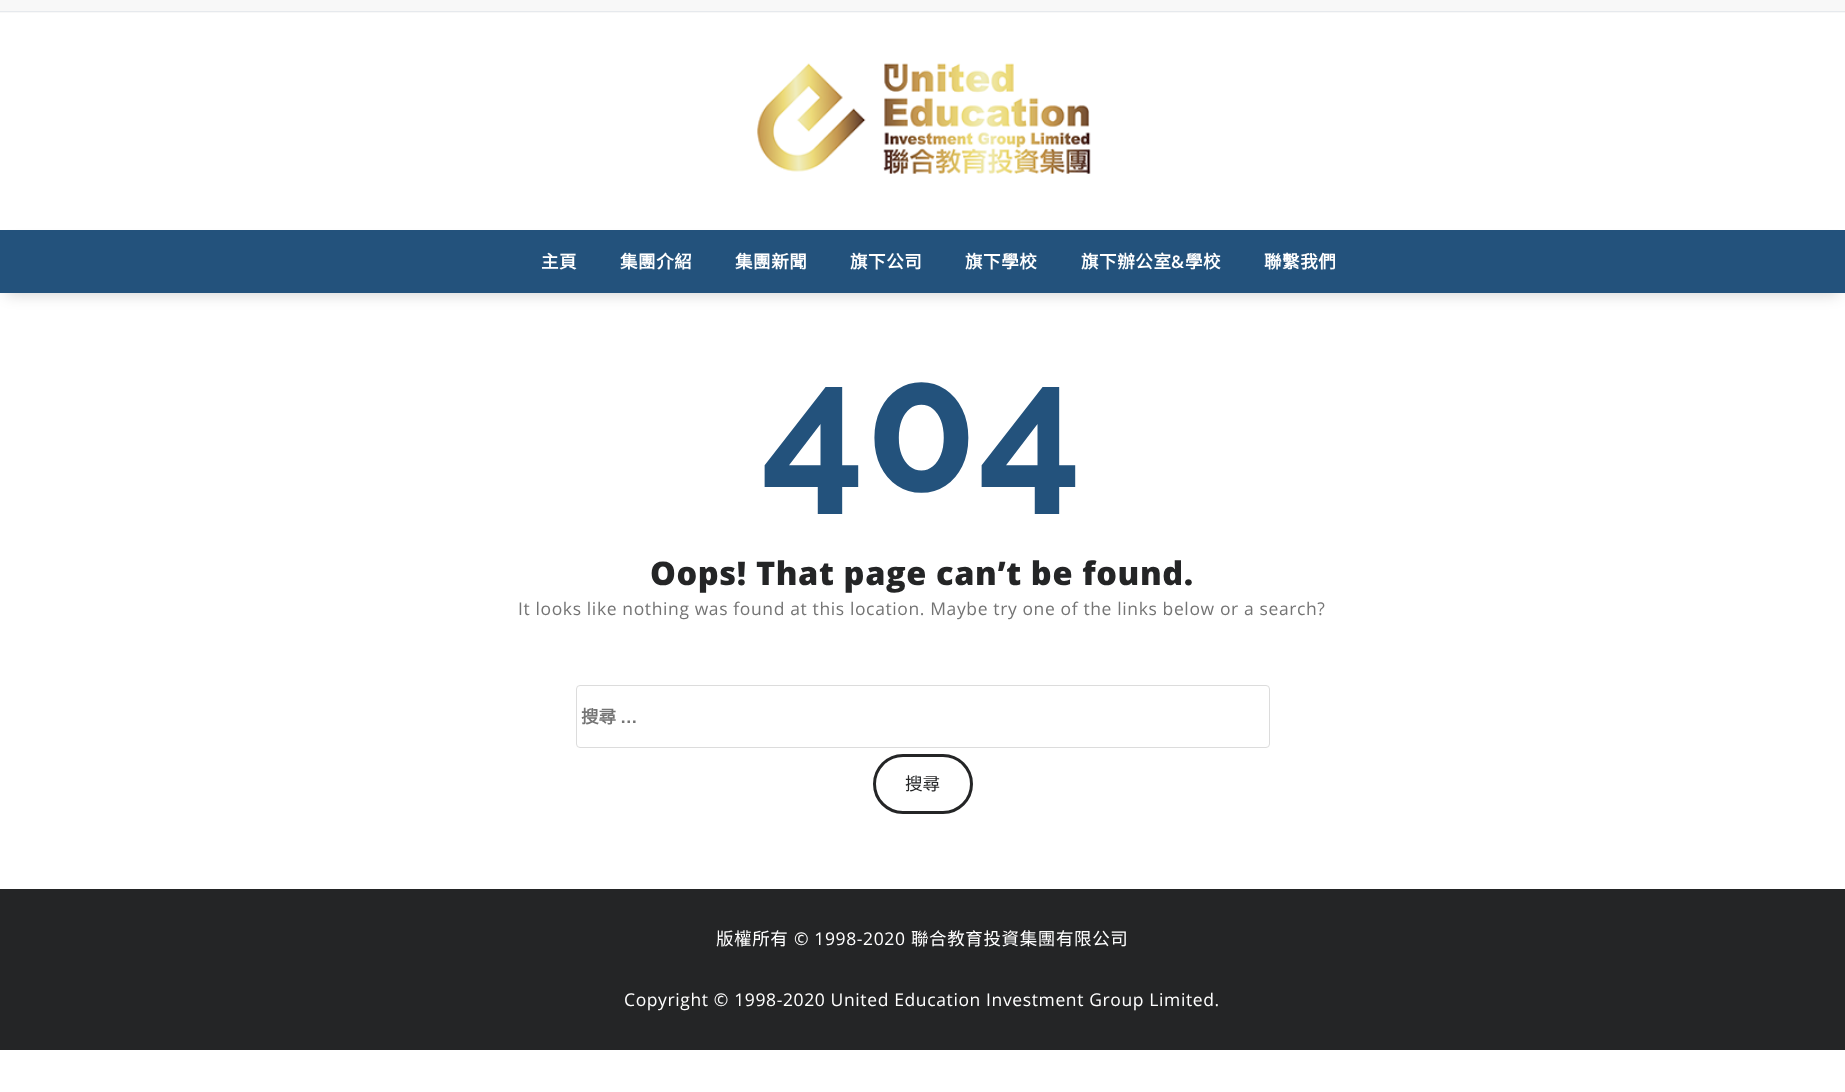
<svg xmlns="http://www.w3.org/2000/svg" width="1845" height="1092">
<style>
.a{font:bold 17.5px Noto Sans CJK HK;letter-spacing:0.62px;fill:#fff}
.b{font:600 17.5px Open Sans;letter-spacing:0.62px;fill:#fff}
.c{font:bold 182px Raleway;letter-spacing:0.62px;fill:#23527c}
.d{font:800 32.5px Open Sans;letter-spacing:0.62px;fill:#242526}
.e{font:17.5px Open Sans;letter-spacing:0.62px;fill:#747474}
.f{font:bold 17.5px Noto Sans CJK HK;fill:#747474}
.g{font:bold 17.5px Liberation Sans;fill:#747474}
.h{font:17.5px Noto Sans CJK HK;fill:#242526}
.i{font:17.5px Noto Sans CJK HK;letter-spacing:0.62px;fill:#fff}
.j{font:17.5px Open Sans;letter-spacing:0.62px;fill:#fff}
</style>
<rect width="100%" height="100%" fill="#fff"/>
<path fill="#f8f8f8" d="M0 0h1845v13H0z"/>
<path fill="#e6e9ed" d="M0 11h1845v1H0z"/>
<image href="1.png" x="757" y="63" width="334" height="111"/>
<path fill="#0000002e" filter="blur(7.5px)" d="M6 244h1833v50H6z"/>
<path fill="#23527c" d="M0 230h1845v63H0z"/>
<rect fill="none" stroke="#dcdcdc" x="576.5" y="685.5" width="693" height="62" rx="3.5"/>
<rect fill="none" stroke="#242526" stroke-width="3" x="874.5" y="755.5" width="97" height="57" rx="28.5"/>
<path fill="#242526" d="M0 889h1845v161H0z"/>
<text class="a" x="541" y="268">主頁</text>
<text class="a" x="620" y="268">集團介紹</text>
<text class="a" x="735" y="268">集團新聞</text>
<text class="a" x="850" y="268">旗下公司</text>
<text class="a" x="965" y="268">旗下學校</text>
<text class="a" x="1081" y="268">旗下辦公室</text>
<text class="b" x="1171" y="268">&amp;</text>
<text class="a" x="1185" y="268">學校</text>
<text class="a" x="1264" y="268">聯繫我們</text>
<text class="c" x="761" y="491">404</text>
<text class="d" x="650" y="585">Oops! That page can’t be found.</text>
<text class="e" x="518" y="615">It looks like nothing was found at this location. Maybe try one of the links below or a search?</text>
<text class="f" x="581" y="723">搜尋</text>
<text class="g" x="620" y="723">…</text>
<text class="h" x="905" y="790">搜尋</text>
<text class="i" x="716" y="945">版權所有</text>
<text class="j" x="794" y="945">© 1998-2020</text>
<text class="i" x="911" y="945">聯合教育投資集團有限公司</text>
<text class="j" x="624" y="1006">Copyright © 1998-2020 United Education Investment Group Limited.</text>
</svg>
